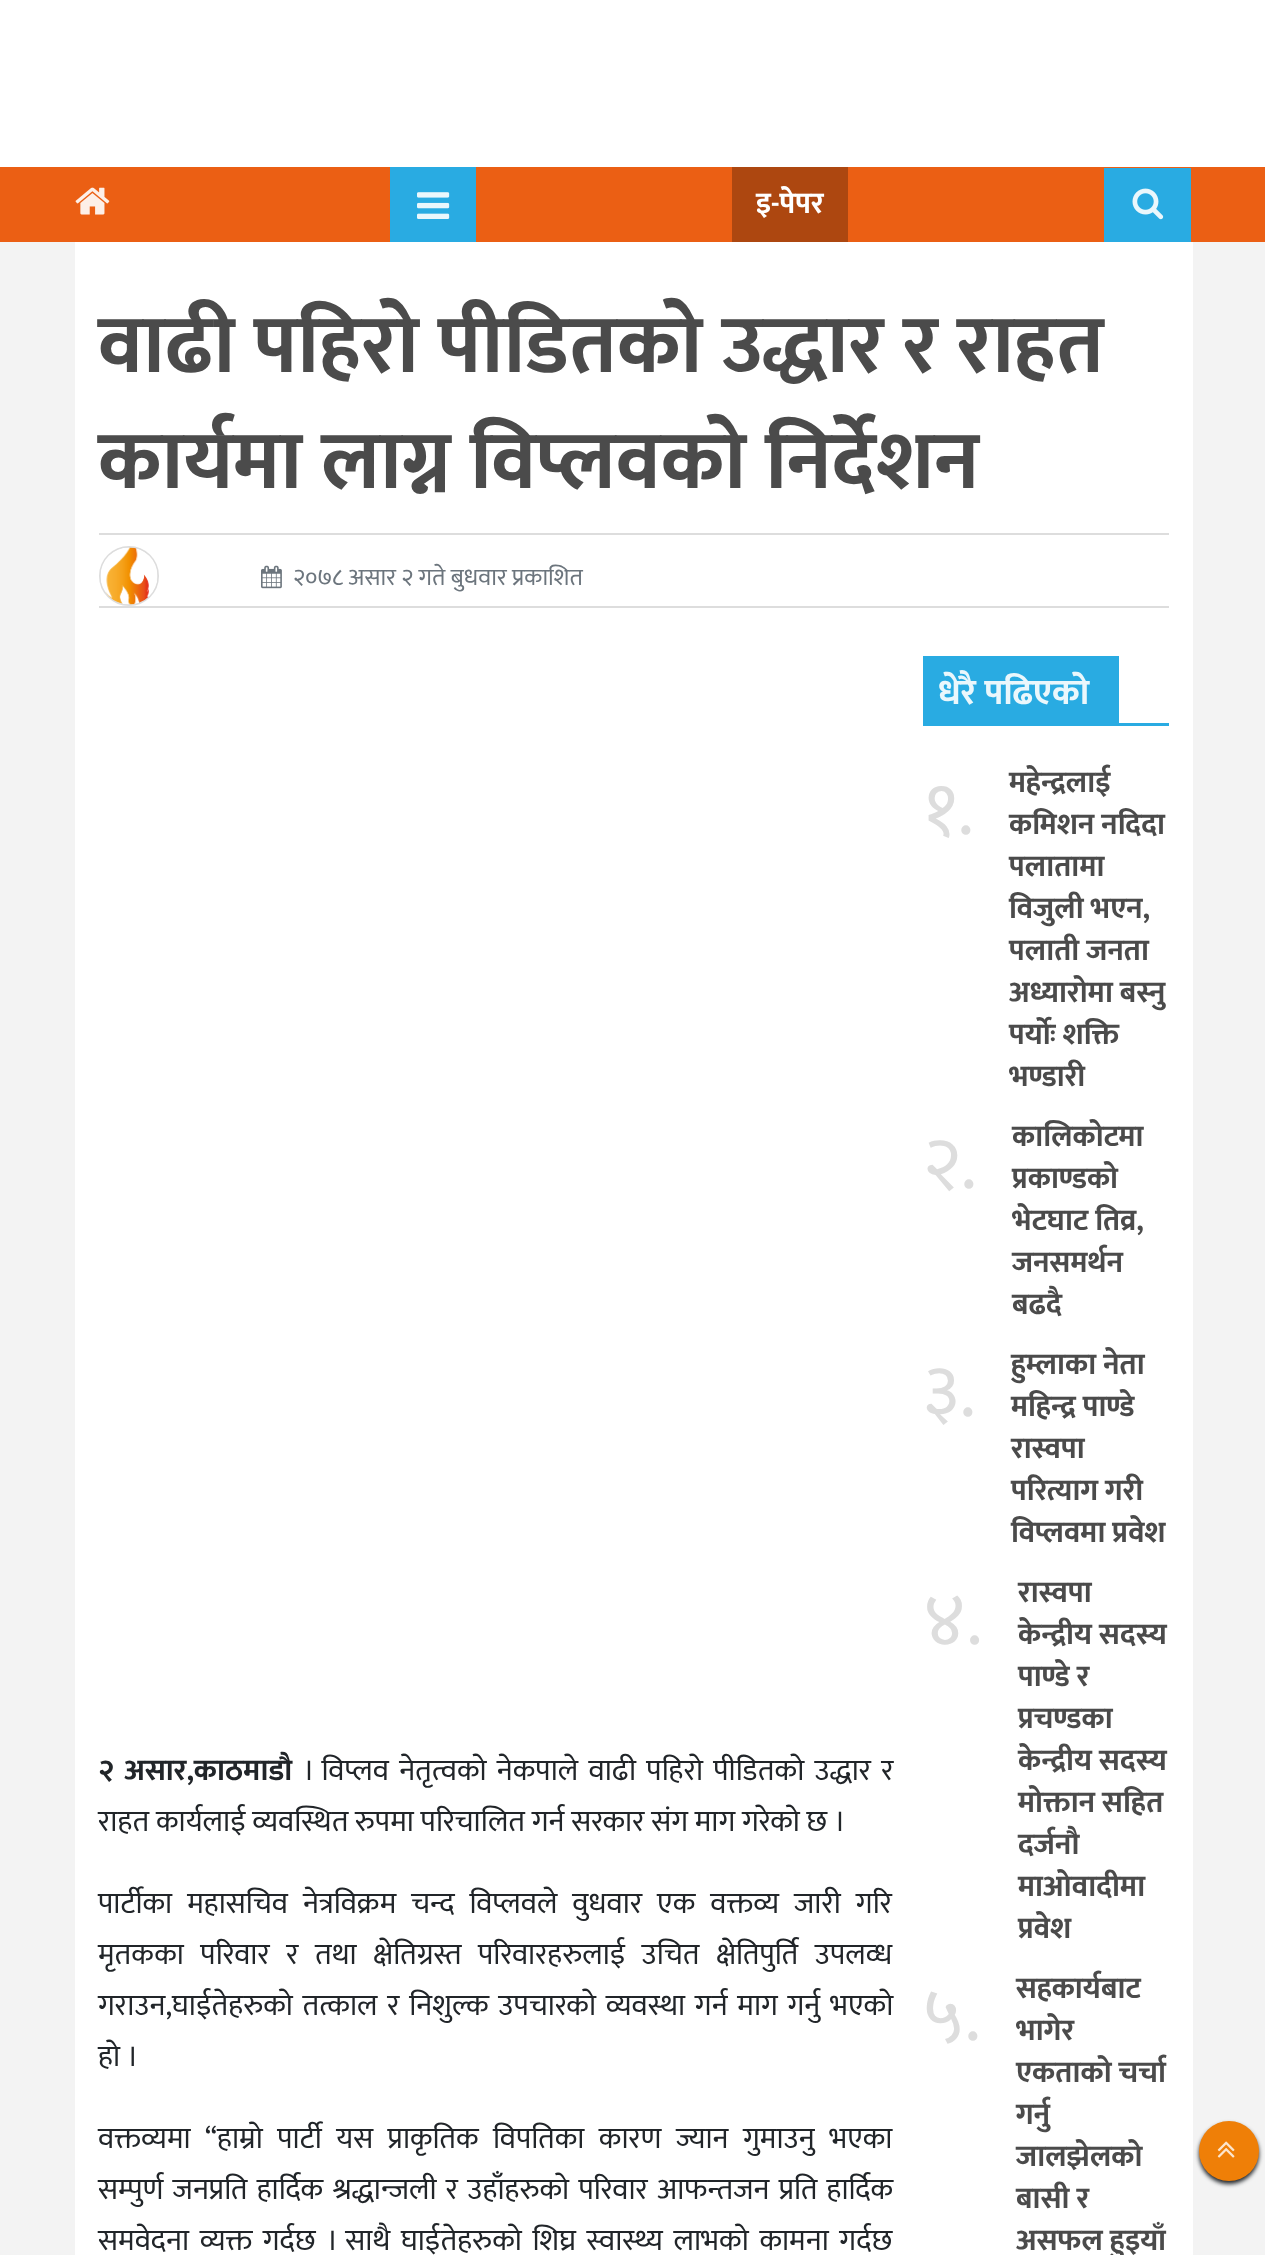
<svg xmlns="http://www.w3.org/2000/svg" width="1265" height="2255">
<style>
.a{font:bold 30px Mukta;fill:#fff}
.b{font:bold 82.5px Mukta;fill:#4b4b4b}
.c{font:24px Mukta;fill:#6c757d}
.d{font:bold 30px Mukta;fill:#212529}
.e{font:30px Mukta;fill:#212529}
.f{font:bold 36px Mukta;fill:#eaf7fc}
.g{font:75px Mukta;fill:#ddd}
.h{font:bold 30px Mukta;fill:#4b4b4b}
</style>
<rect width="100%" height="100%" fill="#f3f3f3"/>
<path fill="#fff" d="M0 0h1265v167H0z"/>
<path fill="#eb5f14" d="M0 167h1265v75H0z"/>
<image href="1.png" x="75" y="187" width="35" height="28"/>
<path fill="#29abe2" d="M390 167h86v75H390z"/>
<image href="2.png" x="417" y="192" width="33" height="27"/>
<path fill="#ad4710" d="M732 167h116v75H732z"/>
<path fill="#29abe2" d="M1104 168h87v74H1104z"/>
<image href="3.png" x="1132" y="188" width="32" height="32"/>
<path fill="#fff" d="M75 242h1118v2013H75z"/>
<path fill="#ddd" d="M99 533h1070v2H99z"/>
<path fill="#ddd" d="M99 606h1070v2H99z"/>
<circle fill="none" stroke="#ddd" stroke-width="2" cx="129" cy="576" r="29"/>
<image href="4.png" x="100" y="547" width="58" height="58"/>
<image href="5.png" x="261" y="565" width="21" height="24"/>
<path fill="#29abe2" d="M923 723h246v3H923z"/>
<path fill="#29abe2" d="M923 656h196v67H923z"/>
<rect fill="#212529" filter="blur(2px)" x="1199" y="2124" width="60" height="60" rx="30"/>
<circle fill="#ef7f07" cx="1229" cy="2151" r="30"/>
<image href="6.png" x="1217" y="2141" width="18" height="17"/>
<text class="a" x="756" y="213">इ-पेपर</text>
<text class="b" x="98" y="372">वाढी पहिरो पीडितको उद्धार र राहत</text>
<text class="b" x="98" y="488">कार्यमा लाग्न विप्लवको निर्देशन</text>
<text class="c" x="293" y="585">२०७८ असार २ गते बुधवार प्रकाशित</text>
<text class="d" x="98" y="1780" word-spacing="3">२ असार,काठमाडौ</text>
<text class="e" x="303" y="1780" word-spacing="3.5">। विप्लव नेतृत्वको नेकपाले वाढी पहिरो पीडितको उद्धार र</text>
<text class="e" x="98" y="1831">राहत कार्यलाई व्यवस्थित रुपमा परिचालित गर्न सरकार संग माग गरेको छ ।</text>
<text class="e" x="98" y="1913" word-spacing="8.25">पार्टीका महासचिव नेत्रविक्रम चन्द विप्लवले वुधवार एक वक्तव्य जारी गरि</text>
<text class="e" x="98" y="1964" word-spacing="9.75">मृतकका परिवार र तथा क्षेतिग्रस्त परिवारहरुलाई उचित क्षेतिपुर्ति उपलव्ध</text>
<text class="e" x="98" y="2015" word-spacing="3">गराउन,घाईतेहरुको तत्काल र निशुल्क उपचारको व्यवस्था गर्न माग गर्नु भएको</text>
<text class="e" x="98" y="2066">हो ।</text>
<text class="e" x="98" y="2148" word-spacing="7.75">वक्तव्यमा “हाम्रो पार्टी यस प्राकृतिक विपतिका कारण ज्यान गुमाउनु भएका</text>
<text class="e" x="98" y="2199" word-spacing="2.5">सम्पुर्ण जनप्रति हार्दिक श्रद्धान्जली र उहाँहरुको परिवार आफन्तजन प्रति हार्दिक</text>
<text class="e" x="98" y="2250" word-spacing="3.9">समवेदना व्यक्त गर्दछ । साथै घाईतेहरुको शिघ्र स्वास्थ्य लाभको कामना गर्दछ</text>
<text class="f" x="938" y="704">धेरै पढिएको</text>
<text class="g" x="923" y="834">१.</text>
<text class="h" x="1009" y="792">महेन्द्रलाई</text>
<text class="h" x="1009" y="834">कमिशन नदिदा</text>
<text class="h" x="1009" y="876">पलातामा</text>
<text class="h" x="1009" y="918">विजुली भएन,</text>
<text class="h" x="1009" y="960">पलाती जनता</text>
<text class="h" x="1009" y="1002">अध्यारोमा बस्नु</text>
<text class="h" x="1009" y="1044">पर्योः शक्ति</text>
<text class="h" x="1009" y="1086">भण्डारी</text>
<text class="g" x="923" y="1188">२.</text>
<text class="h" x="1012" y="1146">कालिकोटमा</text>
<text class="h" x="1012" y="1188">प्रकाण्डको</text>
<text class="h" x="1012" y="1230">भेटघाट तिव्र,</text>
<text class="h" x="1012" y="1272">जनसमर्थन</text>
<text class="h" x="1012" y="1314">बढदै</text>
<text class="g" x="923" y="1416">३.</text>
<text class="h" x="1011" y="1374">हुम्लाका नेता</text>
<text class="h" x="1011" y="1416">महिन्द्र पाण्डे</text>
<text class="h" x="1011" y="1458">रास्वपा</text>
<text class="h" x="1011" y="1500">परित्याग गरी</text>
<text class="h" x="1011" y="1542">विप्लवमा प्रवेश</text>
<text class="g" x="923" y="1644">४.</text>
<text class="h" x="1018" y="1602">रास्वपा</text>
<text class="h" x="1018" y="1644">केन्द्रीय सदस्य</text>
<text class="h" x="1018" y="1686">पाण्डे र</text>
<text class="h" x="1018" y="1728">प्रचण्डका</text>
<text class="h" x="1018" y="1770">केन्द्रीय सदस्य</text>
<text class="h" x="1018" y="1812">मोक्तान सहित</text>
<text class="h" x="1018" y="1854">दर्जनौ</text>
<text class="h" x="1018" y="1896">माओवादीमा</text>
<text class="h" x="1018" y="1938">प्रवेश</text>
<text class="g" x="923" y="2040">५.</text>
<text class="h" x="1016" y="1998">सहकार्यबाट</text>
<text class="h" x="1016" y="2040">भागेर</text>
<text class="h" x="1016" y="2082">एकताको चर्चा</text>
<text class="h" x="1016" y="2124">गर्नु</text>
<text class="h" x="1016" y="2166">जालझेलको</text>
<text class="h" x="1016" y="2208">बासी र</text>
<text class="h" x="1016" y="2250">असफल हुइयाँ</text>
</svg>
